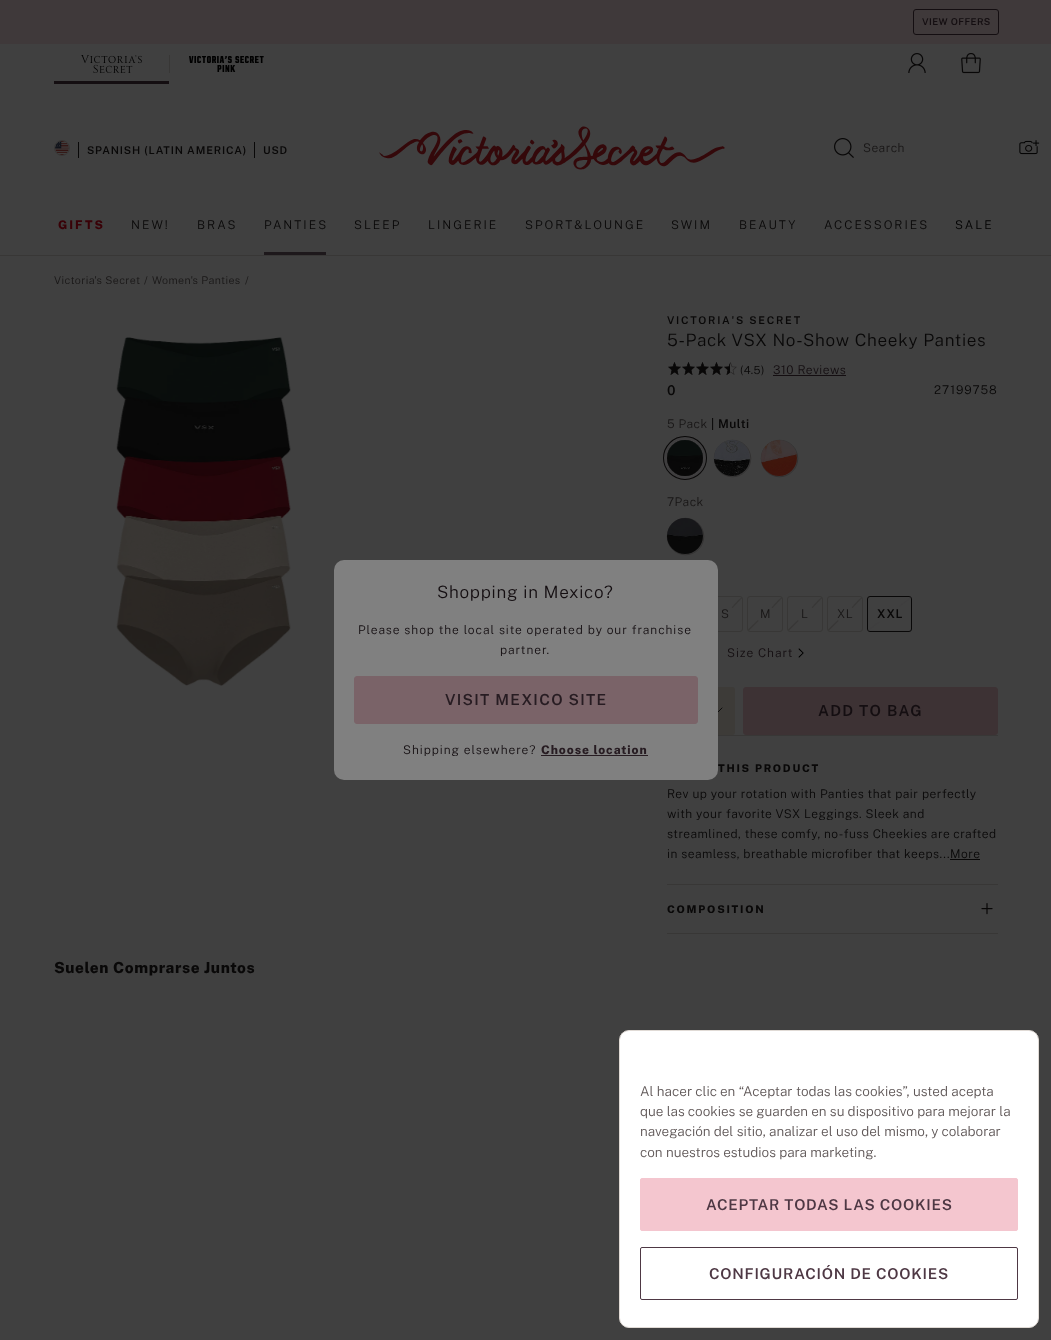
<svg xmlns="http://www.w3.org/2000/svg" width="1051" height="1340">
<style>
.a{font:600 9.5px Public Sans;letter-spacing:0.4px;fill:#140e11}
.b{font:600 10.7px Public Sans;letter-spacing:0.85px;fill:#090808}
.c{font:300 12px Public Sans;letter-spacing:0.48px;fill:#181616}
.d{font:800 12px Public Sans;letter-spacing:2px;fill:#390107}
.e{font:300 12px Public Sans;letter-spacing:2px;fill:#090808}
.f{font:300 12px Public Sans;letter-spacing:2px;fill:#000}
.g{font:300 10.7px Public Sans;letter-spacing:0.4px;fill:#181616}
.h{font:600 10.7px Public Sans;letter-spacing:1.75px;fill:#090808}
.i{font:300 17.1px Public Sans;letter-spacing:0.7px;fill:#090808}
.j{font:300 11px Public Sans;letter-spacing:0.4px;fill:#090808}
.k{font:300 12px Public Sans;letter-spacing:0.48px;fill:#140e11}
.l{font:600 13.5px Public Sans;letter-spacing:1px;fill:#090808}
.m{font:300 12px Public Sans;letter-spacing:0.95px;fill:#090808}
.n{font:600 12px Public Sans;letter-spacing:0.48px;fill:#090808}
.o{font:300 12px Public Sans;letter-spacing:0.95px;fill:#140e11}
.p{font:600 15.25px Public Sans;letter-spacing:1.25px;fill:#140e11}
.q{font:800 10.7px Public Sans;letter-spacing:1.75px;fill:#090808}
.r{font:300 12px Public Sans;letter-spacing:0.48px;fill:#090808}
.s{font:800 15.25px Public Sans;letter-spacing:0.6px;fill:#090808}
.t{font:300 17.1px Public Sans;letter-spacing:0.7px;fill:#140e11}
.u{font:600 15.25px Public Sans;letter-spacing:1.25px;fill:#271c22}
.v{font:800 12px Public Sans;letter-spacing:0.95px;fill:#271c22}
.w{font:300 13.5px Public Sans;fill:#605858}
.x{font:600 15px Public Sans;letter-spacing:0.75px;fill:#4e3844}
</style>
<rect width="100%" height="100%" fill="#404040"/>
<path fill="#3f393a" d="M0 0h1051v44H0z"/>
<rect fill="none" stroke="#140e11" x="913.5" y="9.5" width="85" height="25" rx="2.5"/>
<path fill="#140e11" d="M54 81h115v3H54z"/>
<image href="1.png" x="81" y="55" width="61" height="18"/>
<path fill="#383736" d="M169 55h1v18H169z"/>
<image href="2.png" x="189" y="56" width="75" height="16"/>
<image href="3.png" x="908" y="53" width="18" height="20"/>
<image href="4.png" x="961" y="53" width="20" height="21"/>
<circle fill="none" stroke="#383736" cx="62" cy="148" r="7.5"/>
<image href="5.png" x="55" y="141" width="14" height="14"/>
<path fill="#090808" d="M78 142h1v16H78z"/>
<path fill="#090808" d="M254 142h1v16H254z"/>
<image href="6.png" x="379" y="126" width="346" height="44"/>
<image href="7.png" x="834" y="138" width="20" height="20"/>
<image href="8.png" x="1019" y="140" width="21" height="15"/>
<path fill="#1d181b" d="M264 252h62v3H264z"/>
<path fill="#383736" d="M0 255h1051v1H0z"/>
<image href="9.png" x="116" y="337" width="175" height="349"/>
<image href="10.png" x="668" y="362" width="13" height="13"/>
<image href="10.png" x="682" y="362" width="13" height="13"/>
<image href="10.png" x="696" y="362" width="13" height="13"/>
<image href="10.png" x="710" y="362" width="13" height="13"/>
<image href="10.png" x="724" y="362" width="13" height="13"/>
<image href="11.png" x="668" y="362" width="13" height="13"/>
<image href="11.png" x="682" y="362" width="13" height="13"/>
<image href="11.png" x="696" y="362" width="13" height="13"/>
<image href="11.png" x="710" y="362" width="13" height="13"/>
<image href="12.png" x="724" y="363" width="6" height="12"/>
<path fill="#140e11" d="M773 375h73v1H773z"/>
<circle fill="none" stroke="#090808" stroke-width="4" cx="685" cy="458" r="20"/>
<circle fill="none" stroke="#3f3e3f" stroke-width="3" cx="685" cy="458" r="19.5"/>
<image href="13.png" x="667" y="440" width="36" height="36"/>
<circle fill="none" stroke="#262424" stroke-width="0.5" cx="732.5" cy="458.5" r="18.25"/>
<image href="14.png" x="714" y="440" width="36" height="36"/>
<circle fill="none" stroke="#262424" stroke-width="0.5" cx="779.5" cy="458.5" r="18.25"/>
<image href="15.png" x="761" y="440" width="36" height="36"/>
<circle fill="none" stroke="#262424" stroke-width="0.5" cx="685.5" cy="536.5" r="18.25"/>
<image href="16.png" x="667" y="518" width="36" height="36"/>
<rect fill="none" stroke="#383736" x="707.5" y="596.5" width="35" height="35" rx="2.5"/>
<path fill="#383736" d="M732 607c-.5 .5 0 1 .5 1l9.5-10l-.5-.5c-3 2-8.5 8.5-9.5 9.5z"/>
<rect fill="none" stroke="#383736" x="747.5" y="596.5" width="35" height="35" rx="2.5"/>
<rect fill="none" stroke="#383736" x="787.5" y="596.5" width="35" height="35" rx="2.5"/>
<rect fill="none" stroke="#383736" x="827.5" y="596.5" width="35" height="35" rx="2.5"/>
<rect fill="none" stroke="#090808" x="867.5" y="596.5" width="44" height="35" rx="2.5"/>
<image href="17.png" x="798" y="648" width="6" height="10"/>
<rect fill="#3d3b38" x="667" y="687" width="68" height="48" rx="3"/>
<path fill="none" stroke="#000" stroke-width="0.8" stroke-linecap="round" d="M722 708l-6.5 6.5l-6.5-6.5"/>
<rect fill="#3d3234" stroke="#3d3234" x="743.5" y="687.5" width="254" height="47" rx="2.5"/>
<path fill="#383736" d="M718 735h280v1H718z"/>
<path fill="#090808" d="M950 859h30v1H950z"/>
<path fill="#383736" d="M667 884h331v1H667z"/>
<path fill="#383736" d="M667 933h331v1H667z"/>
<image href="18.png" x="981" y="903" width="12" height="12"/>
<rect fill="#fff" stroke="#e0dad5" x="619.5" y="1030.5" width="419" height="297" rx="9.5"/>
<rect fill="#f4c6cf" stroke="#f4c6cf" x="640.5" y="1178.5" width="377" height="52" rx="1.5"/>
<rect fill="none" stroke="#4e3844" x="640.5" y="1247.5" width="377" height="52" rx="1.5"/>
<text class="a" x="922" y="25">VIEW OFFERS</text>
<text class="b" x="87" y="154">SPANISH (LATIN AMERICA)</text>
<text class="b" x="263" y="154">USD</text>
<text class="c" x="863" y="152">Search</text>
<text class="d" x="58" y="229">GIFTS</text>
<text class="e" x="131" y="229">NEW!</text>
<text class="e" x="197" y="229">BRAS</text>
<text class="e" x="264" y="229">PANTIES</text>
<text class="e" x="354" y="229">SLEEP</text>
<text class="e" x="428" y="229">LINGERIE</text>
<text class="e" x="525" y="229">SPORT&amp;LOUNGE</text>
<text class="e" x="671" y="229">SWIM</text>
<text class="e" x="739" y="229">BEAUTY</text>
<text class="e" x="824" y="229">ACCESSORIES</text>
<text class="f" x="955" y="229">SALE</text>
<text class="g" x="54" y="284">Victoria's Secret</text>
<text class="g" x="144" y="284">/</text>
<text class="g" x="152" y="284">Women's Panties</text>
<text class="g" x="245" y="284">/</text>
<text class="h" x="667" y="324">VICTORIA'S SECRET</text>
<text class="i" x="667" y="346">5-Pack VSX No-Show Cheeky Panties</text>
<text class="j" x="740" y="374">(4.5)</text>
<text class="k" x="773" y="374">310 Reviews</text>
<text class="l" x="667" y="395">0</text>
<text class="m" x="934" y="394">27199758</text>
<text class="c" x="667" y="428">5 Pack</text>
<text class="n" x="711" y="428">| Multi</text>
<text class="c" x="667" y="506">7Pack</text>
<text class="c" x="721" y="618">S</text>
<text class="c" x="760" y="618">M</text>
<path fill="#383736" d="M749 630.5l-1-1l10-9.5l.5 1zm23-23.5c-.5 .5 0 1 .5 1l9.5-10l-.5-.5c-3 2-8.5 8.5-9.5 9.5z"/>
<text class="c" x="801" y="618">L</text>
<path fill="#383736" d="M789 630.5l-1-1l10-9.5l.5 1zm23-23.5c-.5 .5 0 1 .5 1l9.5-10l-.5-.5c-3 2-8.5 8.5-9.5 9.5z"/>
<text class="c" x="837" y="618">XL</text>
<path fill="#383736" d="M829 630.5l-1-1l10-9.5l.5 1zm23-23.5c-.5 .5 0 1 .5 1l9.5-10l-.5-.5c-3 2-8.5 8.5-9.5 9.5z"/>
<text class="n" x="877" y="618">XXL</text>
<path fill="#3f3e3f" d="M869 630.5l-1-.5l10.5-8l1-.5v.5zm30.5-25c-.5 .5 0 1 .5 1l11-8.5l-.5-.5z"/>
<text class="o" x="727" y="657">Size Chart</text>
<text class="p" x="818" y="716">ADD TO BAG</text>
<text class="q" x="718" y="772">THIS PRODUCT</text>
<text class="r" x="667" y="798">Rev up your rotation with Panties that pair perfectly</text>
<text class="r" x="667" y="818">with your favorite VSX Leggings. Sleek and</text>
<text class="r" x="667" y="838">streamlined, these comfy, no-fuss Cheekies are crafted</text>
<text class="r" x="667" y="858">in seamless, breathable microfiber that keeps...More</text>
<text class="q" x="667" y="913">COMPOSITION</text>
<text class="s" x="54" y="973">Suelen Comprarse Juntos</text>
<rect fill="#808080" x="334" y="560" width="384" height="220" rx="10"/>
<text class="t" x="437" y="598">Shopping in Mexico?</text>
<text class="o" x="358" y="634">Please shop the local site operated by our franchise</text>
<text class="o" x="500" y="654">partner.</text>
<rect fill="#7a6368" stroke="#7a6368" x="354.5" y="676.5" width="343" height="47" rx="2.5"/>
<text class="u" x="445" y="705">VISIT MEXICO SITE</text>
<text class="o" x="403" y="754">Shipping elsewhere?</text>
<text class="v" x="541" y="754">Choose location</text>
<path fill="#271c22" d="M541 755h107v1H541z"/>
<text class="w" x="640" y="1096">Al hacer clic en “Aceptar todas las cookies”, usted acepta</text>
<text class="w" x="640" y="1116">que las cookies se guarden en su dispositivo para mejorar la</text>
<text class="w" x="640" y="1136">navegación del sitio, analizar el uso del mismo, y colaborar</text>
<text class="w" x="640" y="1157">con nuestros estudios para marketing.</text>
<text class="x" x="706" y="1210">ACEPTAR TODAS LAS COOKIES</text>
<text class="x" x="709" y="1279">CONFIGURACIÓN DE COOKIES</text>
</svg>
